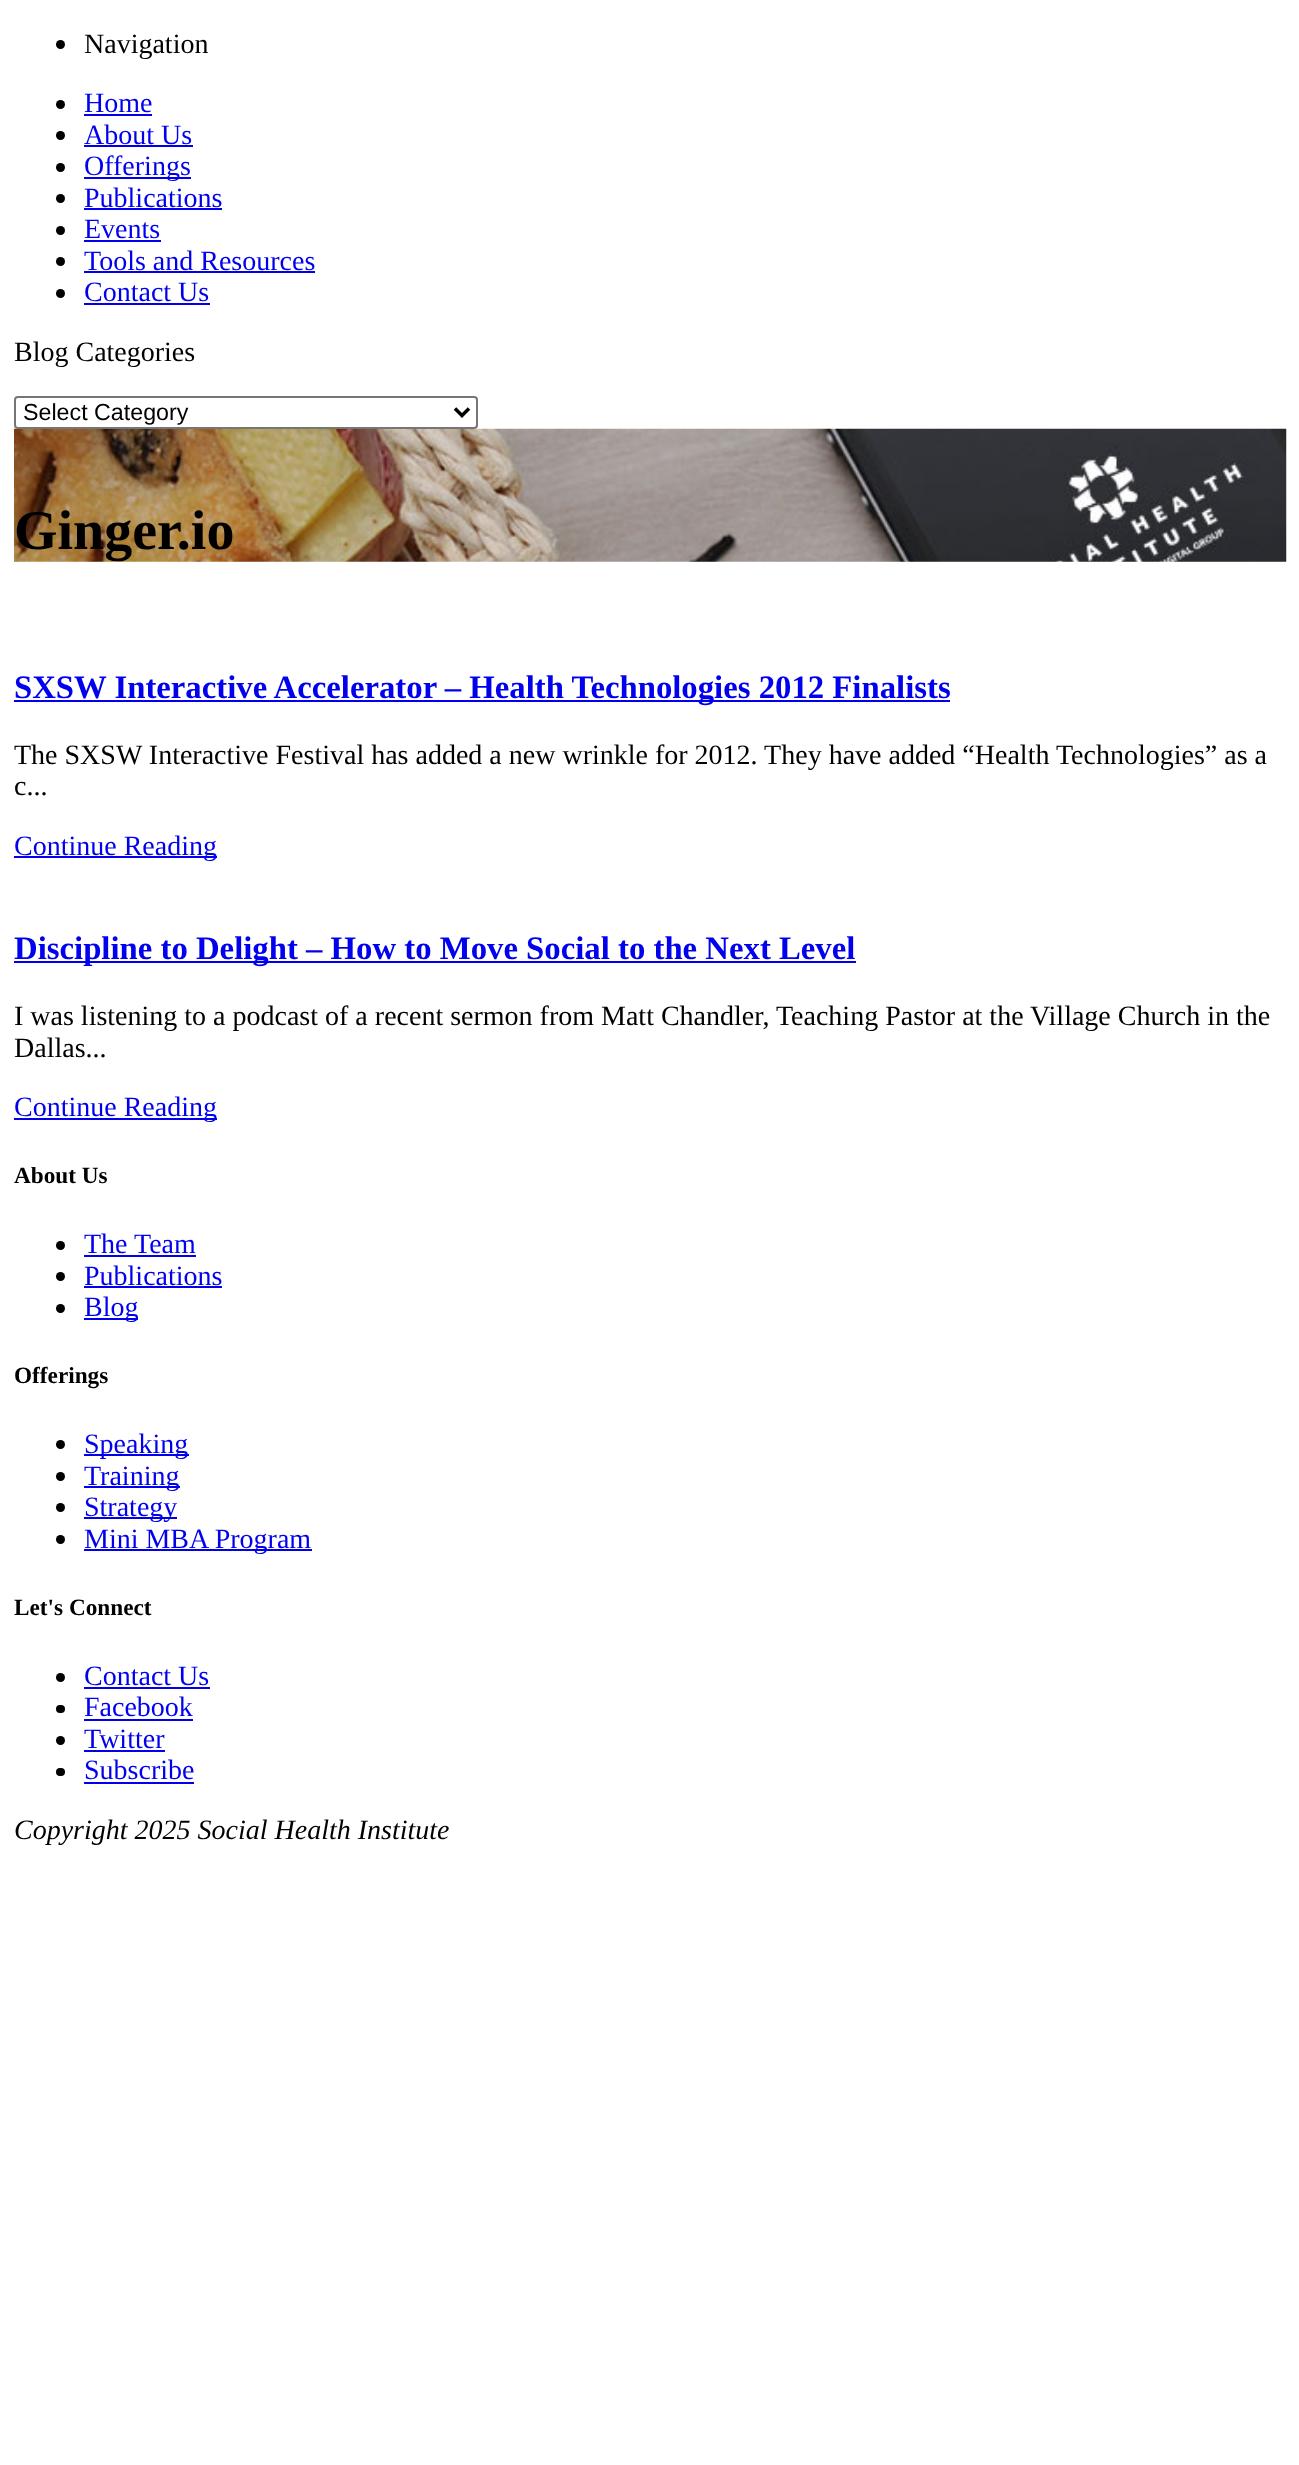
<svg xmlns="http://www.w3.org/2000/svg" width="1299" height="2465">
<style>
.a{font:28px Liberation Serif;fill:#000}
.b{font:28px Liberation Serif;fill:#00e}
.c{font:23.25px Liberation Sans;fill:#000}
.d{font:bold 56px Liberation Serif;fill:#000}
.e{font:bold 32.75px Liberation Serif;fill:#00e}
.f{font:bold 23.25px Liberation Serif;fill:#000}
.g{font:italic 28px Liberation Serif;fill:#000}
</style>
<rect width="100%" height="100%" fill="#fff"/>
<circle fill="#000" cx="60.5" cy="44.5" r="4.5"/>
<circle fill="#000" cx="60.5" cy="104.5" r="4.5"/>
<path fill="#00e" d="M84 114h68v2H84z"/>
<circle fill="#000" cx="60.5" cy="135.5" r="4.5"/>
<path fill="#00e" d="M84 145h109v2H84z"/>
<circle fill="#000" cx="60.5" cy="167.5" r="4.5"/>
<path fill="#00e" d="M84 177h107v2H84z"/>
<circle fill="#000" cx="60.5" cy="198.5" r="4.5"/>
<path fill="#00e" d="M84 208h138v2H84z"/>
<circle fill="#000" cx="60.5" cy="230.5" r="4.5"/>
<path fill="#00e" d="M84 240h77v2H84z"/>
<circle fill="#000" cx="60.5" cy="261.5" r="4.5"/>
<path fill="#00e" d="M84 271h231v2H84z"/>
<circle fill="#000" cx="60.5" cy="293.5" r="4.5"/>
<path fill="#00e" d="M84 303h126v2H84z"/>
<image href="1.png" x="14" y="428" width="1273" height="134"/>
<rect fill="#fff" stroke="#767676" stroke-width="2" x="15" y="397" width="462" height="31" rx="3"/>
<path fill="none" stroke="#000" stroke-width="3.5" d="M455 408.5l7 7l7-7"/>
<path fill="#00e" d="M14 700h936v2H14z"/>
<path fill="#00e" d="M14 856h203v2H14z"/>
<path fill="#00e" d="M14 961h842v2H14z"/>
<path fill="#00e" d="M14 1118h203v2H14z"/>
<circle fill="#000" cx="60.5" cy="1245.5" r="4.5"/>
<path fill="#00e" d="M84 1255h112v2H84z"/>
<circle fill="#000" cx="60.5" cy="1276.5" r="4.5"/>
<path fill="#00e" d="M84 1286h138v2H84z"/>
<circle fill="#000" cx="60.5" cy="1308.5" r="4.5"/>
<path fill="#00e" d="M84 1318h54v2H84z"/>
<circle fill="#000" cx="60.5" cy="1444.5" r="4.5"/>
<path fill="#00e" d="M84 1454h105v2H84z"/>
<circle fill="#000" cx="60.5" cy="1476.5" r="4.5"/>
<path fill="#00e" d="M84 1486h96v2H84z"/>
<circle fill="#000" cx="60.5" cy="1507.5" r="4.5"/>
<path fill="#00e" d="M84 1517h93v2H84z"/>
<circle fill="#000" cx="60.5" cy="1539.5" r="4.5"/>
<path fill="#00e" d="M84 1549h228v2H84z"/>
<circle fill="#000" cx="60.5" cy="1677.5" r="4.5"/>
<path fill="#00e" d="M84 1687h126v2H84z"/>
<rect fill="#000" x="56" y="1705" width="9" height="8" rx="4"/>
<path fill="#00e" d="M84 1719h109v2H84z"/>
<circle fill="#000" cx="60.5" cy="1740.5" r="4.5"/>
<path fill="#00e" d="M84 1750h81v2H84z"/>
<rect fill="#000" x="56" y="1768" width="9" height="8" rx="4"/>
<path fill="#00e" d="M84 1782h110v2H84z"/>
<text class="a" x="84" y="53">Navigation</text>
<text class="b" x="84" y="112">Home</text>
<text class="b" x="84" y="144">About Us</text>
<text class="b" x="84" y="175">Offerings</text>
<text class="b" x="84" y="207">Publications</text>
<text class="b" x="84" y="238">Events</text>
<text class="b" x="84" y="270">Tools and Resources</text>
<text class="b" x="84" y="301">Contact Us</text>
<text class="a" x="14" y="361">Blog Categories</text>
<text class="c" x="23" y="420">Select Category</text>
<text class="d" x="14" y="549">Ginger.io</text>
<text class="e" x="14" y="698">SXSW Interactive Accelerator – Health Technologies 2012 Finalists</text>
<text class="a" x="14" y="764">The SXSW Interactive Festival has added a new wrinkle for 2012. They have added “Health Technologies” as a</text>
<text class="a" x="14" y="795">c...</text>
<text class="b" x="14" y="855">Continue Reading</text>
<text class="e" x="14" y="959">Discipline to Delight – How to Move Social to the Next Level</text>
<text class="a" x="14" y="1025">I was listening to a podcast of a recent sermon from Matt Chandler, Teaching Pastor at the Village Church in the</text>
<text class="a" x="14" y="1057">Dallas...</text>
<text class="b" x="14" y="1116">Continue Reading</text>
<text class="f" x="14" y="1183">About Us</text>
<text class="b" x="84" y="1253">The Team</text>
<text class="b" x="84" y="1285">Publications</text>
<text class="b" x="84" y="1316">Blog</text>
<text class="f" x="14" y="1383">Offerings</text>
<text class="b" x="84" y="1453">Speaking</text>
<text class="b" x="84" y="1485">Training</text>
<text class="b" x="84" y="1516">Strategy</text>
<text class="b" x="84" y="1548">Mini MBA Program</text>
<text class="f" x="14" y="1615">Let's Connect</text>
<text class="b" x="84" y="1685">Contact Us</text>
<text class="b" x="84" y="1716">Facebook</text>
<text class="b" x="84" y="1748">Twitter</text>
<text class="b" x="84" y="1779">Subscribe</text>
<text class="g" x="14" y="1839">Copyright 2025 Social Health Institute</text>
</svg>
